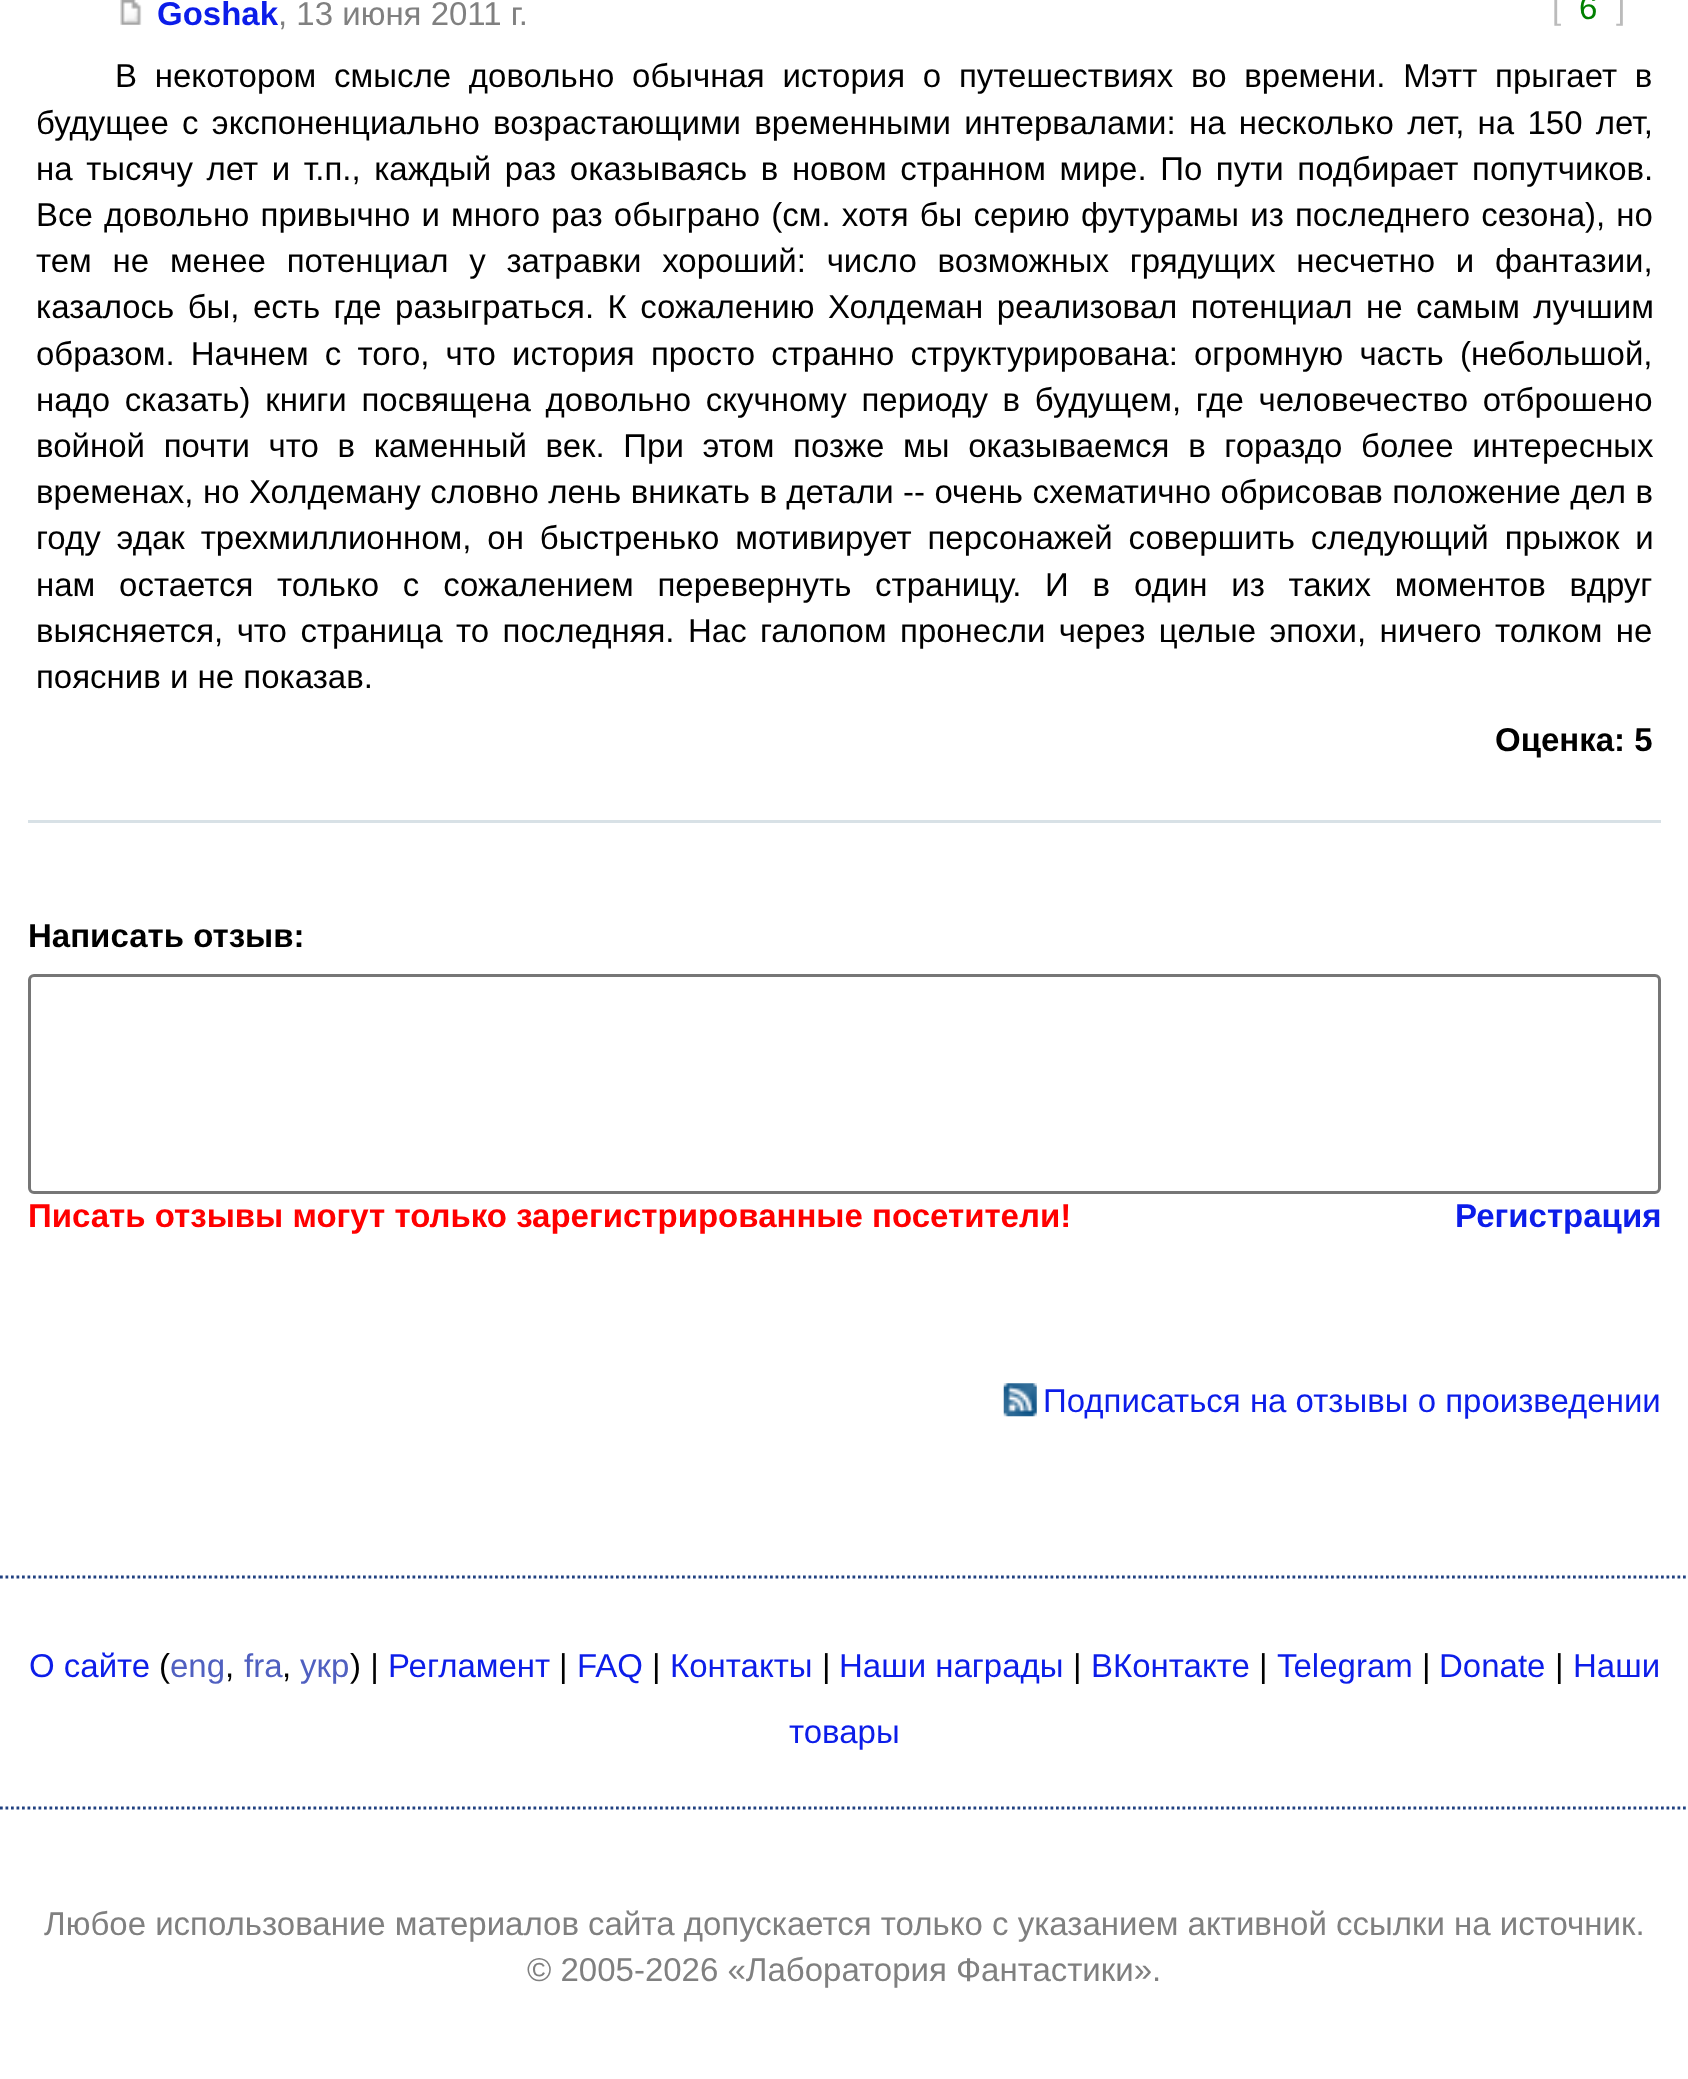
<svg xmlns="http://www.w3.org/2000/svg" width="1688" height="2079">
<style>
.a{font:bold 33px Liberation Sans;fill:#0c1de9}
.b{font:33px Liberation Sans;fill:#808080}
.c{font:33px Liberation Sans;fill:#bbb}
.d{font:33px Liberation Sans;fill:#008000}
.e{font:33px Liberation Sans;fill:#000}
.f{font:bold 33px Liberation Sans;fill:#000}
.g{font:bold 33px Liberation Sans;fill:#f00}
.h{font:33px Liberation Sans;fill:#0c1de9}
.i{font:33px Liberation Sans;fill:#5060c0}
</style>
<rect width="100%" height="100%" fill="#fff"/>
<path fill="#d8e1e6" d="M28 820h1633v3H28z"/>
<image href="1.png" x="120" y="0" width="22" height="25"/>
<rect fill="none" stroke="#767676" stroke-width="3" x="29.5" y="975.5" width="1630" height="217" rx="4.5"/>
<image href="2.png" x="1003" y="1383" width="34" height="34"/>
<path fill="none" stroke="#204080" stroke-width="2.8" stroke-dasharray="2.75 2.75" d="M0 1577h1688.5"/>
<path fill="none" stroke="#204080" stroke-width="2.8" stroke-dasharray="2.75 2.75" d="M0 1808h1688.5"/>
<text class="a" x="157" y="25">Goshak</text>
<text class="b" x="278" y="25">, 13 июня 2011 г.</text>
<text class="c" x="1552" y="19">[</text>
<text class="d" x="1579" y="19">6</text>
<text class="c" x="1616" y="19">]</text>
<text class="e" x="115" y="87" word-spacing="8.6">В некотором смысле довольно обычная история о путешествиях во времени. Мэтт прыгает в</text>
<text class="e" x="36" y="134" word-spacing="4.1">будущее с экспоненциально возрастающими временными интервалами: на несколько лет, на 150 лет,</text>
<text class="e" x="36" y="180" word-spacing="4.4">на тысячу лет и т.п., каждый раз оказываясь в новом странном мире. По пути подбирает попутчиков.</text>
<text class="e" x="36" y="226" word-spacing="2">Все довольно привычно и много раз обыграно (см. хотя бы серию футурамы из последнего сезона), но</text>
<text class="e" x="36" y="272" word-spacing="11.6">тем не менее потенциал у затравки хороший: число возможных грядущих несчетно и фантазии,</text>
<text class="e" x="36" y="318" word-spacing="4.25">казалось бы, есть где разыграться. К сожалению Холдеман реализовал потенциал не самым лучшим</text>
<text class="e" x="36" y="365" word-spacing="7">образом. Начнем с того, что история просто странно структурирована: огромную часть (небольшой,</text>
<text class="e" x="36" y="411" word-spacing="5.5">надо сказать) книги посвящена довольно скучному периоду в будущем, где человечество отброшено</text>
<text class="e" x="36" y="457" word-spacing="9.5">войной почти что в каменный век. При этом позже мы оказываемся в гораздо более интересных</text>
<text class="e" x="36" y="503" word-spacing="0.25">временах, но Холдеману словно лень вникать в детали -- очень схематично обрисовав положение дел в</text>
<text class="e" x="36" y="549" word-spacing="6.75">году эдак трехмиллионном, он быстренько мотивирует персонажей совершить следующий прыжок и</text>
<text class="e" x="36" y="596" word-spacing="14.6">нам остается только с сожалением перевернуть страницу. И в один из таких моментов вдруг</text>
<text class="e" x="36" y="642" word-spacing="4.25">выясняется, что страница то последняя. Нас галопом пронесли через целые эпохи, ничего толком не</text>
<text class="e" x="36" y="688">пояснив и не показав.</text>
<text class="f" x="1495" y="751">Оценка: 5</text>
<text class="f" x="28" y="947">Написать отзыв:</text>
<text class="g" x="28" y="1227">Писать отзывы могут только зарегистрированные посетители!</text>
<text class="a" x="1455" y="1227">Регистрация</text>
<text class="h" x="1043" y="1412">Подписаться на отзывы о произведении</text>
<text class="h" x="29" y="1677">О сайте</text>
<text class="e" x="159" y="1677">(</text>
<text class="i" x="170" y="1677">eng</text>
<text class="e" x="225" y="1677">,</text>
<text class="i" x="244" y="1677">fra</text>
<text class="e" x="282" y="1677">,</text>
<text class="i" x="300" y="1677">укр</text>
<text class="e" x="350" y="1677">) |</text>
<text class="h" x="388" y="1677">Регламент</text>
<text class="e" x="559" y="1677">|</text>
<text class="h" x="577" y="1677">FAQ</text>
<text class="e" x="652" y="1677">|</text>
<text class="h" x="670" y="1677">Контакты</text>
<text class="e" x="822" y="1677">|</text>
<text class="h" x="839" y="1677">Наши награды</text>
<text class="e" x="1073" y="1677">|</text>
<text class="h" x="1091" y="1677">ВКонтакте</text>
<text class="e" x="1259" y="1677">|</text>
<text class="h" x="1277" y="1677">Telegram</text>
<text class="e" x="1422" y="1677">|</text>
<text class="h" x="1439" y="1677">Donate</text>
<text class="e" x="1555" y="1677">|</text>
<text class="h" x="1573" y="1677">Наши</text>
<text class="h" x="789" y="1743">товары</text>
<text class="b" x="44" y="1935">Любое использование материалов сайта допускается только с указанием активной ссылки на источник.</text>
<text class="b" x="527" y="1981">© 2005-2026 «Лаборатория Фантастики».</text>
</svg>
